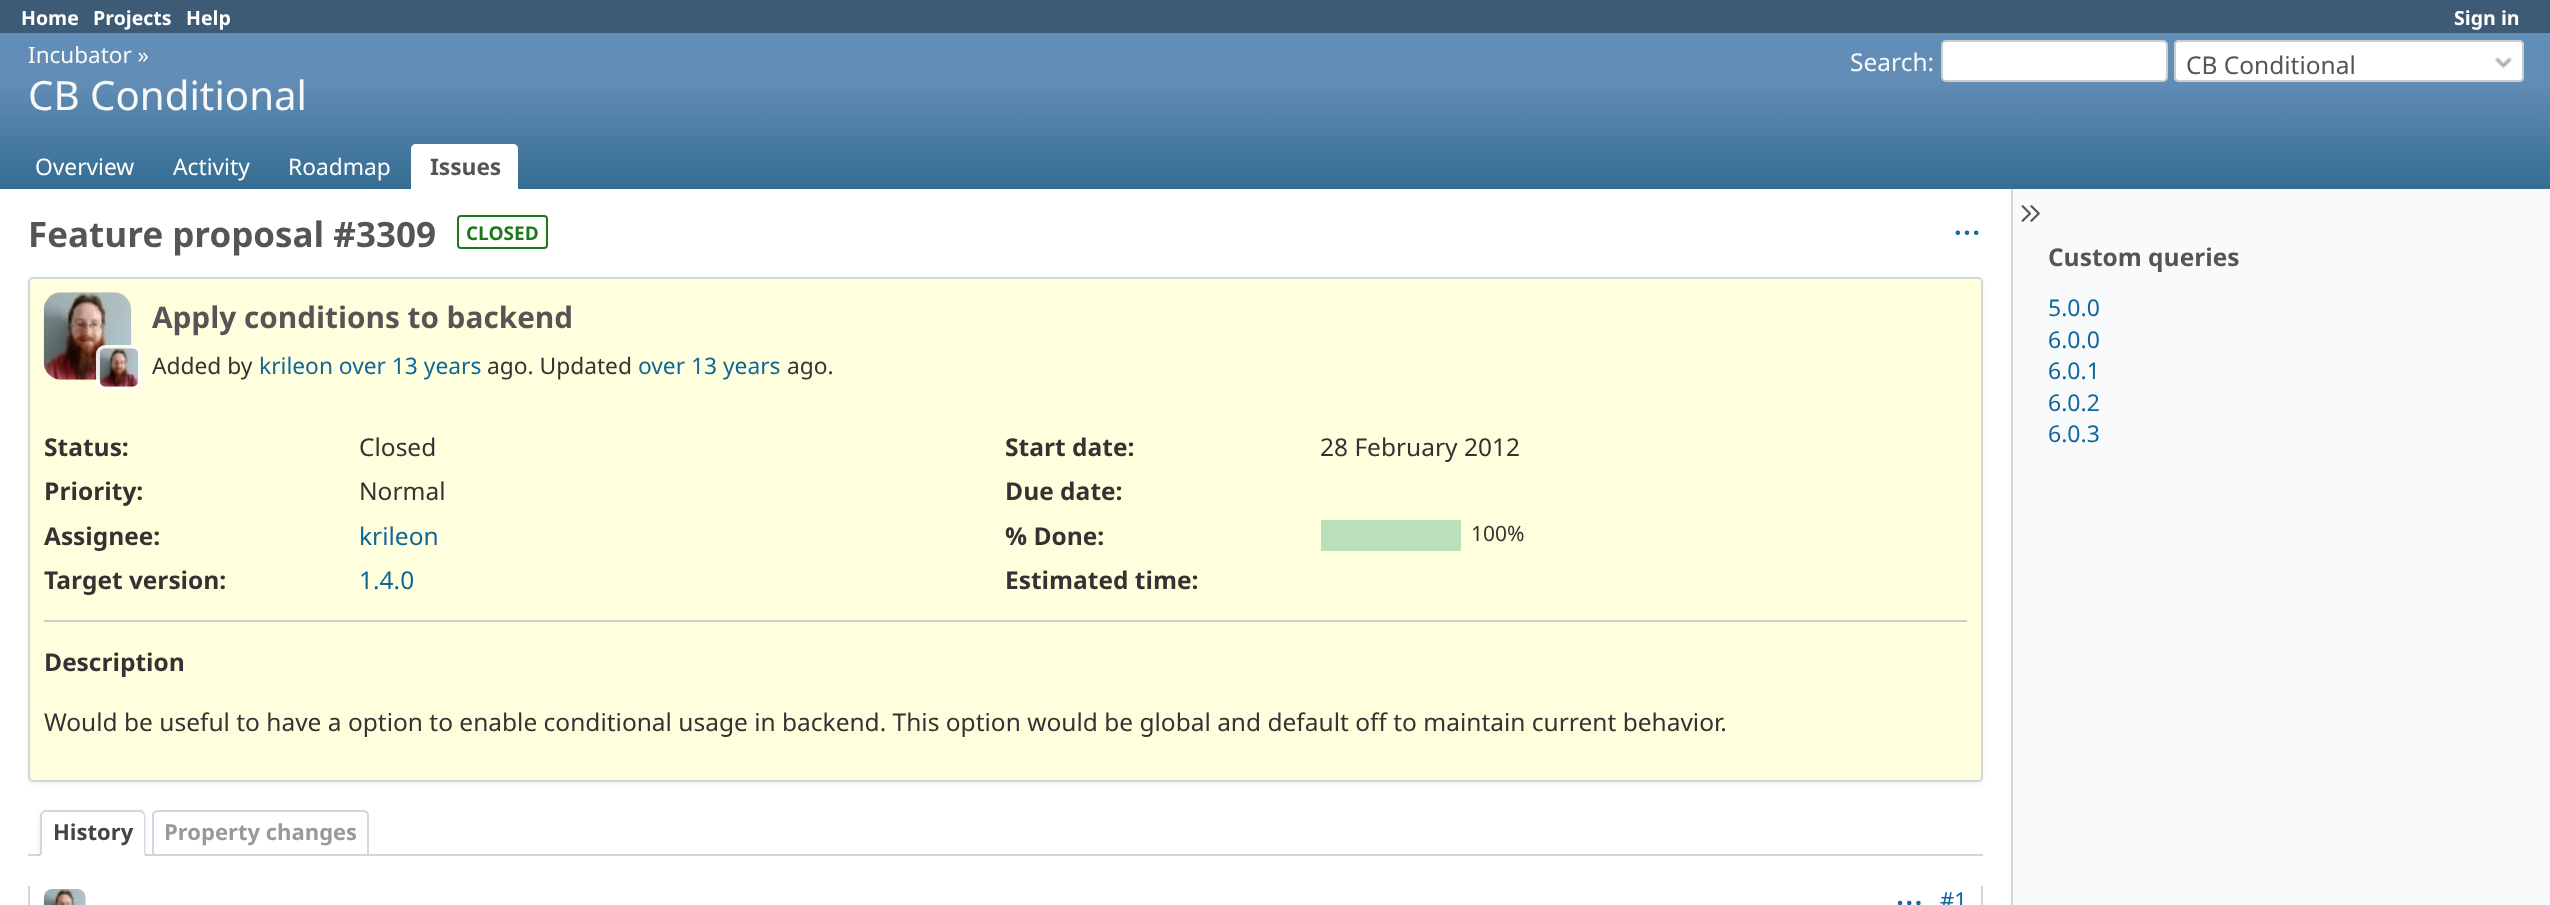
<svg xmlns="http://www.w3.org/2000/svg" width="2550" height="905">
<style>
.a{font:bold 19.5px Noto Sans;fill:#fff}
.b{font:22.5px Noto Sans;fill:#f8f8f8}
.c{font:40.25px Noto Sans;fill:#f8f8f8}
.d{font:24.5px Noto Sans;fill:#f8f8f8}
.e{font:24.5px Noto Sans;fill:#555}
.f{font:22.75px Noto Sans;fill:#fff}
.g{font:bold 22.75px Noto Sans;fill:#555}
.h{font:bold 35px Noto Sans;fill:#555}
.i{font:bold 19px Noto Sans;fill:#1d781d}
.j{font:bold 29.75px Noto Sans;fill:#555}
.k{font:22.75px Noto Sans;fill:#333}
.l{font:22.75px Noto Sans;fill:#169}
.m{font:bold 24.5px Noto Sans;fill:#333}
.n{font:24.5px Noto Sans;fill:#333}
.o{font:24.5px Noto Sans;fill:#169}
.p{font:21px Noto Sans;fill:#333}
.q{font:bold 22px Noto Sans;fill:#444}
.r{font:bold 22px Noto Sans;fill:#999}
.s{font:22px Noto Sans;fill:#169}
.t{font:bold 24.5px Noto Sans;fill:#555}
.u{font:23px Noto Sans;fill:#169}
</style>
<defs>
<linearGradient id="g1" gradientUnits="userSpaceOnUse" x1="1276" y1="33" x2="1276" y2="189"><stop offset="0.3" stop-color="#628db6"/><stop offset="1" stop-color="#356d92"/></linearGradient>
<clipPath id="clip1"><path d="M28 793h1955v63H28z"/></clipPath>
</defs>
<rect width="100%" height="100%" fill="#fff"/>
<path fill="#3e5b76" d="M0 0h2550v33H0z"/>
<path fill="url(#g1)" d="M0 33h2550v156H0z"/>
<rect fill="#fff" stroke="#ccc" stroke-width="2" x="1942" y="41" width="225" height="40" rx="4"/>
<rect fill="#fff" x="2174" y="40" width="350" height="42" rx="5"/>
<image href="1.png" x="2495" y="57" width="17" height="12"/>
<rect fill="none" stroke="#ccc" stroke-width="2" x="2175" y="41" width="348" height="40" rx="4"/>
<path fill="#fff" d="M416 144h97c3 0 5 2 5 5v40h-107v-40c0-3 2-5 5-5z"/>
<rect fill="none" stroke="#1d781d" stroke-width="2" x="458" y="216" width="89" height="32" rx="3"/>
<image href="2.png" x="1955" y="230" width="24" height="5"/>
<rect fill="#0000000d" filter="blur(2px)" x="28" y="278" width="1955" height="506" rx="5"/>
<rect fill="#ffd" stroke="#d0d7de" stroke-width="2" x="29" y="278" width="1953" height="503" rx="4"/>
<image href="3.png" x="43" y="292" width="89" height="88"/>
<rect fill="none" stroke="#ffffffe6" stroke-width="4" x="98" y="347" width="42" height="41" rx="7"/>
<image href="4.png" x="99" y="348" width="40" height="39"/>
<path fill="#bae0ba" d="M1321 520h140v31H1321z"/>
<path fill="#ccc" d="M44 620h1923v2H44z"/>
<path fill="#d0d7de" d="M28 854h1955v2H28z"/>
<g clip-path="url(#clip1)">
<rect fill="#0000001a" filter="blur(2px)" x="40" y="812" width="105" height="46" rx="5"/>
</g>
<path fill="#fff" d="M45 810h95c3 0 5 2 5 5v41h-105v-41c0-3 2-5 5-5z"/>
<path fill="#d0d7de" d="M46 812l-3 1l-1-1l2-2h97l3 2l-2 1l-2-1z"/>
<path fill="#d0d7de" d="M144 812c0 1 1 2 1 4v40l-1-2v-38c0-1-1-2-2-3z"/>
<path fill="#fff" d="M145 856h-105l2-2h102z"/>
<path fill="#d0d7de" d="M40 856v-42l2-2l1 1c-1 1-1 2-1 3v38z"/>
<path fill="none" stroke="#d0d7de" stroke-width="2" d="M157 811h207c2 0 4 2 4 4v40h-215v-40c0-2 2-4 4-4z"/>
<path fill="#d0d7de" fill-rule="evenodd" d="M28 886h1955v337c0 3-3 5-5 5h-1945c-3 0-5-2-5-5zm2 0h1951v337c0 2-2 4-3 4h-1945c-2 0-3-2-3-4z"/>
<image href="5.png" x="43" y="889" width="43" height="16"/>
<image href="6.png" x="1897" y="900" width="24" height="5"/>
<path fill="#f9fafb" d="M2013 189h537v716H2013z"/>
<path fill="#d0d7de" d="M2011 189h2v716H2011z"/>
<image href="7.png" x="2021" y="205" width="19" height="17"/>
<text class="a" x="21" y="25">Home</text>
<text class="a" x="93" y="25">Projects</text>
<text class="a" x="186" y="25">Help</text>
<text class="a" x="2454" y="25">Sign in</text>
<text class="b" x="28" y="63">Incubator »</text>
<text class="c" x="28" y="110">CB Conditional</text>
<text class="d" x="1850" y="71">Search:</text>
<text class="e" x="2186" y="74">CB Conditional</text>
<text class="f" x="35" y="175">Overview</text>
<text class="f" x="173" y="175">Activity</text>
<text class="f" x="288" y="175">Roadmap</text>
<text class="g" x="430" y="175">Issues</text>
<text class="h" x="28" y="247">Feature proposal #3309</text>
<text class="i" x="466" y="240">CLOSED</text>
<text class="j" x="152" y="328">Apply conditions to backend</text>
<text class="k" x="152" y="374">Added by</text>
<text class="l" x="259" y="374">krileon over 13 years</text>
<text class="k" x="487" y="374">ago. Updated</text>
<text class="l" x="638" y="374">over 13 years</text>
<text class="k" x="787" y="374">ago.</text>
<text class="m" x="44" y="456">Status:</text>
<text class="n" x="359" y="456">Closed</text>
<text class="m" x="44" y="500">Priority:</text>
<text class="n" x="359" y="500">Normal</text>
<text class="m" x="44" y="545">Assignee:</text>
<text class="o" x="359" y="545">krileon</text>
<text class="m" x="44" y="589">Target version:</text>
<text class="o" x="359" y="589">1.4.0</text>
<text class="m" x="1005" y="456">Start date:</text>
<text class="n" x="1320" y="456">28 February 2012</text>
<text class="m" x="1005" y="500">Due date:</text>
<text class="m" x="1005" y="545">% Done:</text>
<text class="p" x="1471" y="541">100%</text>
<text class="m" x="1005" y="589">Estimated time:</text>
<text class="m" x="44" y="671">Description</text>
<text class="n" x="44" y="731">Would be useful to have a option to enable conditional usage in backend. This option would be global and default off to maintain current behavior.</text>
<text class="q" x="53" y="840">History</text>
<text class="r" x="164" y="840">Property changes</text>
<text class="s" x="1940" y="908">#1</text>
<text class="t" x="2048" y="266">Custom queries</text>
<text class="u" x="2048" y="316">5.0.0</text>
<text class="u" x="2048" y="348">6.0.0</text>
<text class="u" x="2048" y="379">6.0.1</text>
<text class="u" x="2048" y="411">6.0.2</text>
<text class="u" x="2048" y="442">6.0.3</text>
</svg>
